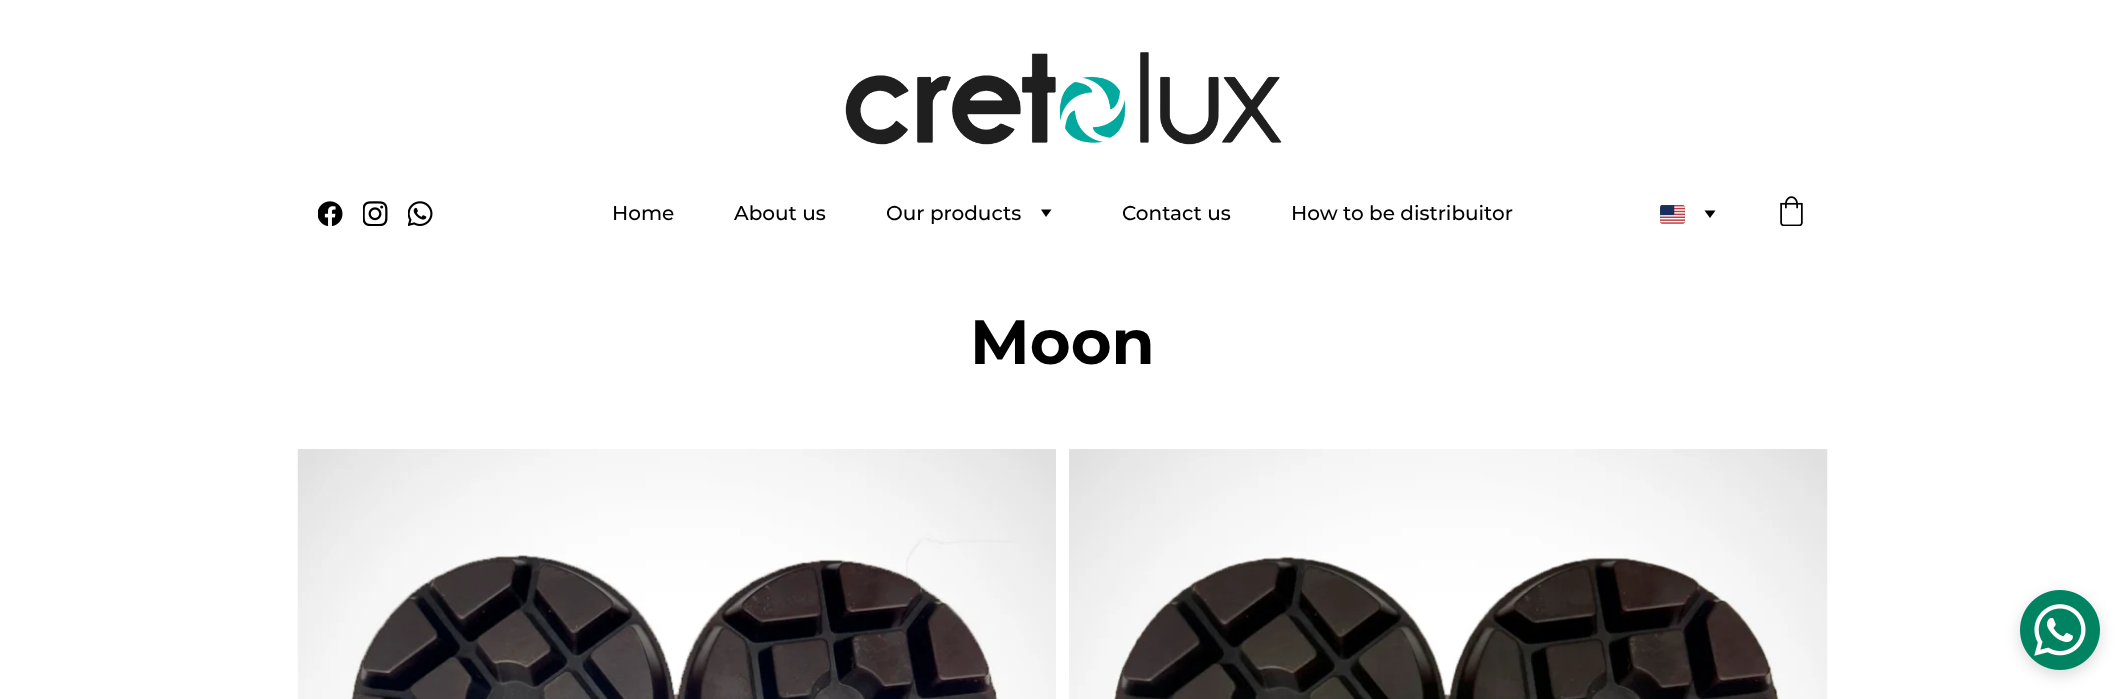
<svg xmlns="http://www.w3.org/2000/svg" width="2125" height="699">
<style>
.a{font:100 20px 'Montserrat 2';fill:#000}
.b{font:100 62.5px Montserrat;fill:#000}
</style>
<rect width="100%" height="100%" fill="#fff"/>
<image href="1.png" x="845" y="52" width="437" height="93"/>
<image href="2.png" x="318" y="201" width="25" height="25"/>
<image href="3.png" x="363" y="201" width="25" height="25"/>
<image href="4.png" x="408" y="201" width="25" height="25"/>
<path fill="#000" d="M1046 217l-5-7.5h10.5z"/>
<image href="5.png" x="1660" y="205" width="25" height="19"/>
<rect fill="none" stroke="#64646426" x="1660.5" y="205.5" width="24" height="18" rx="2"/>
<path fill="#000" d="M1710 218l-5.5-7.5h11z"/>
<image href="6.png" x="1780" y="196" width="23" height="30"/>
<image href="7.png" x="297" y="449" width="759" height="250"/>
<image href="8.png" x="1069" y="449" width="759" height="250"/>
<rect fill="#00000026" filter="blur(7.5px)" x="2020" y="595" width="80" height="80" rx="40"/>
<image href="9.png" x="2020" y="590" width="80" height="80"/>
<text class="a" x="612" y="220">Home</text>
<text class="a" x="734" y="220">About us</text>
<text class="a" x="886" y="220">Our products</text>
<text class="a" x="1122" y="220">Contact us</text>
<text class="a" x="1291" y="220">How to be distribuitor</text>
<text class="b" x="970" y="364">Moon</text>
</svg>
